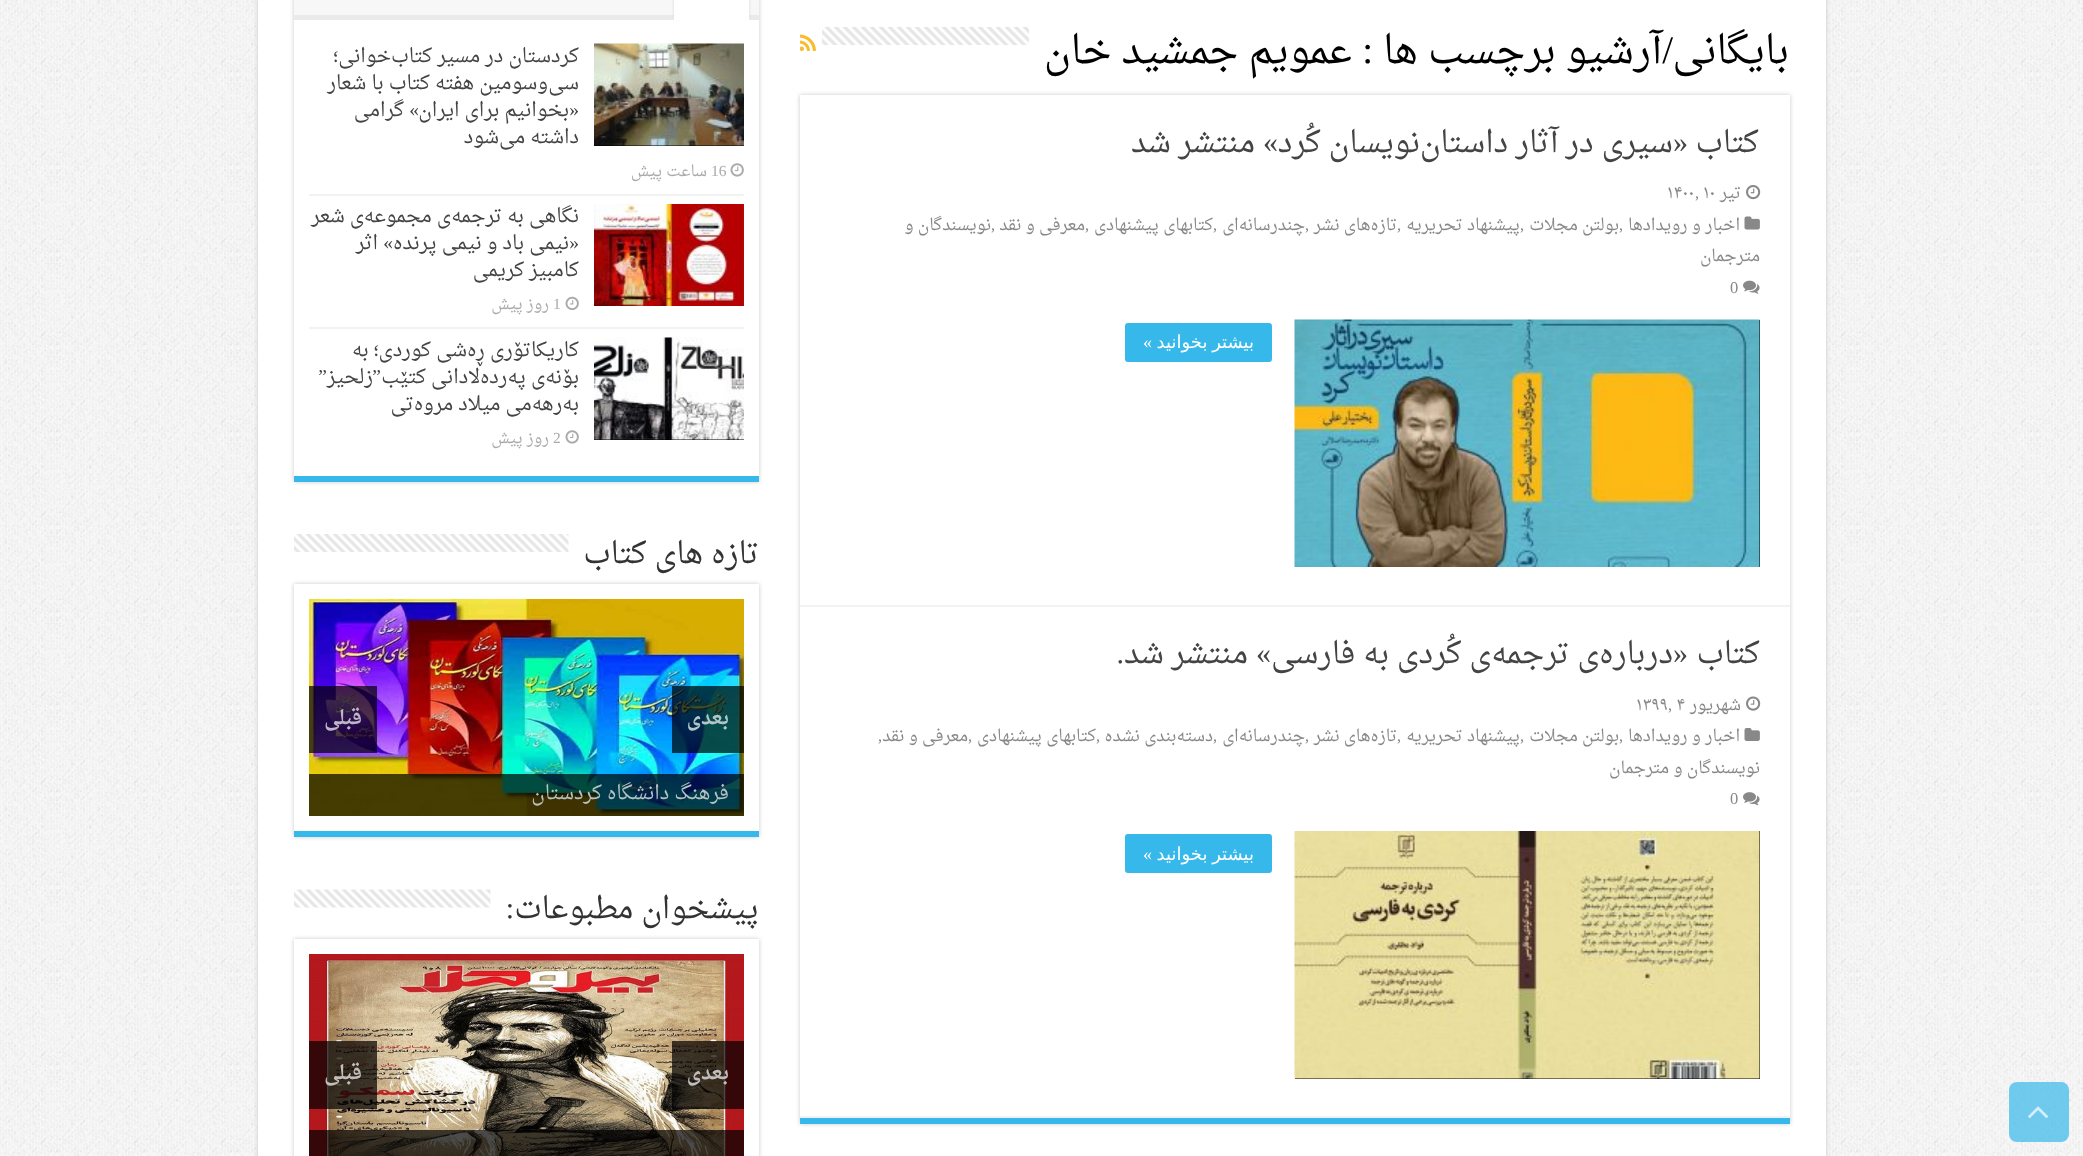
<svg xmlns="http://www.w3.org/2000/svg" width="2083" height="1156">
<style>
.a{font:39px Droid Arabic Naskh;direction:rtl;fill:#000}
.b{font:39px Liberation Serif;direction:rtl;fill:#000}
.c{font:30px Droid Arabic Naskh;direction:rtl;fill:#444}
.d{font:30px Liberation Serif;direction:rtl;fill:#444}
.e{font:16.5px Droid Arabic Naskh;direction:rtl;fill:#888}
.f{font:16.5px Droid Arabic Naskh;fill:#888}
.g{font:16.5px Liberation Serif;fill:#888}
.h{font:18px DejaVu Sans;direction:rtl;fill:#fff}
.i{font:18px Liberation Serif;direction:rtl;fill:#fff}
.j{font:19.5px Droid Arabic Naskh;direction:rtl;fill:#444}
.k{font:19.5px Liberation Serif;direction:rtl;fill:#444}
.l{font:15.5px Liberation Serif;fill:#aaa}
.m{font:15.5px Droid Arabic Naskh;direction:rtl;fill:#aaa}
.n{font:30px Droid Arabic Naskh;direction:rtl;fill:#333}
.o{font:bold 19.5px Droid Arabic Naskh;direction:rtl;fill:#b4c5c9}
.p{font:bold 19.5px Droid Arabic Naskh;direction:rtl;fill:#bfb7c8}
.q{font:19.5px Droid Arabic Naskh;direction:rtl;fill:#b7c2c3}
.r{font:30px Liberation Serif;direction:rtl;fill:#333}
.s{font:bold 19.5px Droid Arabic Naskh;direction:rtl;fill:#c1bdbb}
</style>
<defs>
<clipPath id="clip1"><path d="M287 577h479v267h-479zm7 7h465v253h-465z" clip-rule="evenodd"/></clipPath>
<clipPath id="clip2"><path d="M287 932h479v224h-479zm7 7h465v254h-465z" clip-rule="evenodd"/></clipPath>
</defs>
<rect width="100%" height="100%" fill="#fff"/>
<image href="1.png" x="0" y="0" width="2083" height="1156"/>
<path fill="#cacaca" filter="blur(2px)" d="M258 -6h1568v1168H258z"/>
<path fill="#fff" d="M258 0h1568v1156H258z"/>
<image href="2.png" x="822" y="27" width="207" height="18"/>
<image href="3.png" x="800" y="34" width="16" height="17"/>
<path fill="#cacaca" filter="blur(2px)" d="M800 95h990v1029H800z"/>
<path fill="#fff" d="M800 95h990v1021H800z"/>
<path fill="#37b8eb" d="M800 1118h990v6H800z"/>
<path fill="#f2f2f2" d="M800 605h990v2H800z"/>
<image href="4.png" x="1746" y="185" width="15" height="15"/>
<image href="5.png" x="1744" y="216" width="16" height="14"/>
<image href="6.png" x="1743" y="280" width="17" height="14"/>
<path fill="#000" d="M1759 320h1v247H1759z"/>
<image href="7.png" x="1294" y="319" width="466" height="248"/>
<rect fill="#37b8eb" x="1125" y="323" width="147" height="39" rx="3"/>
<path fill="#f2f2f2" d="M800 1116h990v2H800z"/>
<image href="8.png" x="1746" y="696" width="15" height="15"/>
<image href="9.png" x="1744" y="728" width="16" height="13"/>
<image href="10.png" x="1743" y="792" width="17" height="14"/>
<path fill="#000" d="M1295 831h465v248H1295z"/>
<image href="11.png" x="1294" y="831" width="466" height="248"/>
<rect fill="#37b8eb" x="1125" y="834" width="147" height="39" rx="3"/>
<path fill="#cacaca" filter="blur(2px)" d="M294 -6h465v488H294z"/>
<path fill="#fff" d="M294 20h465v456H294z"/>
<path fill="#37b8eb" d="M294 476h465v6H294z"/>
<path fill="#f7f7f7" d="M294 0h465v15H294z"/>
<path fill="#eaeaea" d="M294 15h465v5H294z"/>
<rect fill="#d4d4d4" filter="blur(1.5px)" x="674" y="-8" width="75" height="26" rx="3"/>
<path fill="#fff" d="M674 0h75v20H674z"/>
<path fill="#f2f2f2" d="M309 194h435v2H309z"/>
<path fill="#000" d="M594 145h150v1H594z"/>
<image href="12.png" x="594" y="43" width="150" height="103"/>
<image href="13.png" x="730" y="163" width="14" height="14"/>
<path fill="#f2f2f2" d="M309 327h435v2H309z"/>
<image href="14.png" x="594" y="204" width="150" height="102"/>
<image href="15.png" x="565" y="296" width="14" height="15"/>
<path fill="#000" d="M594 439h150v1H594z"/>
<image href="16.png" x="594" y="337" width="150" height="103"/>
<image href="13.png" x="565" y="430" width="14" height="14"/>
<image href="17.png" x="294" y="534" width="275" height="18"/>
<g clip-path="url(#clip1)">
<path fill="#cacaca" filter="blur(2px)" d="M294 584h465v253H294z"/>
</g>
<path fill="#37b8eb" d="M294 831h465v6H294z"/>
<image href="18.png" x="309" y="599" width="435" height="217"/>
<path fill="#000000b3" d="M672 686h72v67H672z"/>
<path fill="#000000b3" d="M309 686h68v67H309z"/>
<path fill="#000000b3" d="M309 774h435v42H309z"/>
<image href="19.png" x="294" y="889" width="197" height="19"/>
<g clip-path="url(#clip2)">
<path fill="#cacaca" filter="blur(2px)" d="M294 939h465v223H294z"/>
</g>
<image href="20.png" x="309" y="954" width="435" height="202"/>
<path fill="#000000b3" d="M309 1130h435v26H309z"/>
<path fill="#000000b3" d="M672 1041h72v68H672z"/>
<path fill="#000000b3" d="M309 1041h68v68H309z"/>
<rect fill="#37b8ebb3" x="2009" y="1082" width="60" height="60" rx="8"/>
<image href="21.png" x="2028" y="1106" width="20" height="12"/>
<text class="a" x="1789" y="63">بایگانی</text>
<text class="a" x="1662" y="63">آرشیو برچسب ها</text>
<text class="b" x="1673" y="63">/</text>
<text class="b" x="1373" y="63">:</text>
<text class="a" x="1352" y="63">عمویم جمشید خان</text>
<text class="c" x="1759" y="152">کتاب</text>
<text class="d" x="1688" y="152">«</text>
<text class="c" x="1673" y="152">سیری در آثار داستان</text>
<text class="c" x="1420" y="152">نویسان کُرد</text>
<text class="d" x="1278" y="152">»</text>
<text class="c" x="1255" y="152">منتشر شد</text>
<text class="e" x="1741" y="198">تیر</text>
<text class="f" x="1703" y="198">۱۰</text>
<text class="g" x="1695" y="198">,</text>
<text class="f" x="1667" y="198">۱۴۰۰</text>
<text class="e" x="1740" y="230">اخبار و رویدادها</text>
<text class="g" x="1619" y="230">,</text>
<text class="e" x="1619" y="230">بولتن مجلات</text>
<text class="g" x="1520" y="230">,</text>
<text class="e" x="1520" y="230">پیشنهاد تحریریه</text>
<text class="g" x="1397" y="230">,</text>
<text class="e" x="1397" y="230">تازەهای نشر</text>
<text class="g" x="1305" y="230">,</text>
<text class="e" x="1305" y="230">چندرسانه‌ای</text>
<text class="g" x="1213" y="230">,</text>
<text class="e" x="1213" y="230">کتابهای پیشنهادی</text>
<text class="g" x="1085" y="230">,</text>
<text class="e" x="1085" y="230">معرفی و نقد</text>
<text class="g" x="991" y="230">,</text>
<text class="e" x="991" y="230">نویسندگان و</text>
<text class="e" x="1760" y="261">مترجمان</text>
<text class="g" x="1730" y="293">0</text>
<text class="h" x="1254" y="348" word-spacing="-1">بیشتر بخوانید</text>
<text class="i" x="1152" y="348">»</text>
<text class="c" x="1760" y="663">کتاب</text>
<text class="d" x="1688" y="663">«</text>
<text class="c" x="1673" y="663">دربارەی ترجمەی کُردی بە فارسی</text>
<text class="d" x="1271" y="663">»</text>
<text class="c" x="1248" y="663">منتشر شد</text>
<text class="d" x="1124" y="663">.</text>
<text class="e" x="1741" y="710">شهریور</text>
<text class="f" x="1676" y="710">۴</text>
<text class="g" x="1668" y="710">,</text>
<text class="f" x="1636" y="710">۱۳۹۹</text>
<text class="e" x="1740" y="741">اخبار و رویدادها</text>
<text class="g" x="1619" y="741">,</text>
<text class="e" x="1619" y="741">بولتن مجلات</text>
<text class="g" x="1520" y="741">,</text>
<text class="e" x="1520" y="741">پیشنهاد تحریریه</text>
<text class="g" x="1397" y="741">,</text>
<text class="e" x="1397" y="741">تازەهای نشر</text>
<text class="g" x="1305" y="741">,</text>
<text class="e" x="1305" y="741">چندرسانه‌ای</text>
<text class="g" x="1213" y="741">,</text>
<text class="e" x="1213" y="741">دسته‌بندی نشده</text>
<text class="g" x="1096" y="741">,</text>
<text class="e" x="1096" y="741">کتابهای پیشنهادی</text>
<text class="g" x="968" y="741">,</text>
<text class="e" x="968" y="741">معرفی و نقد</text>
<text class="g" x="878" y="741">,</text>
<text class="e" x="1760" y="773">نویسندگان و مترجمان</text>
<text class="g" x="1730" y="804">0</text>
<text class="h" x="1254" y="860" word-spacing="-1">بیشتر بخوانید</text>
<text class="i" x="1152" y="860">»</text>
<text class="j" x="579" y="62">کردستان در مسیر کتاب</text>
<text class="j" x="391" y="62">خوانی؛</text>
<text class="j" x="579" y="89">سی</text>
<text class="j" x="548" y="89">وسومین هفته کتاب با شعار</text>
<text class="k" x="579" y="116">«</text>
<text class="j" x="569" y="116">بخوانیم برای ایران</text>
<text class="k" x="419" y="116">»</text>
<text class="j" x="404" y="116">گرامی</text>
<text class="j" x="579" y="143">داشته می</text>
<text class="j" x="499" y="143">شود</text>
<text class="l" x="711" y="176">16</text>
<text class="m" x="707" y="176">ساعت پیش</text>
<text class="j" x="579" y="222">نگاهی به ترجمه</text>
<text class="j" x="451" y="222">ی مجموعه</text>
<text class="j" x="364" y="222">ی شعر</text>
<text class="k" x="579" y="249">«</text>
<text class="j" x="569" y="249">نیمی باد و نیمی پرنده</text>
<text class="k" x="393" y="249">»</text>
<text class="j" x="378" y="249">اثر</text>
<text class="j" x="579" y="276">کامبیز کریمی</text>
<text class="l" x="553" y="309">1</text>
<text class="m" x="549" y="309">روز پیش</text>
<text class="j" x="579" y="356">کاریکاتۆری ڕەشی کوردی؛ بە</text>
<text class="j" x="579" y="383">بۆنەی پەردەلادانی کتێب</text>
<text class="k" x="381" y="383">”</text>
<text class="k" x="327" y="383">”</text>
<text class="j" x="373" y="383">زلحیز</text>
<text class="j" x="579" y="410">بەرهەمی میلاد مروەتی</text>
<text class="l" x="553" y="443">2</text>
<text class="m" x="549" y="443">روز پیش</text>
<text class="n" x="759" y="563">تازه های کتاب</text>
<text class="o" x="729" y="724">بعدی</text>
<text class="p" x="362" y="724">قبلی</text>
<text class="q" x="729" y="799">فرهنگ دانشگاه کردستان</text>
<text class="n" x="759" y="918">پیشخوان مطبوعات</text>
<text class="r" x="514" y="918">:</text>
<text class="s" x="729" y="1079">بعدی</text>
<text class="s" x="362" y="1079">قبلی</text>
</svg>
